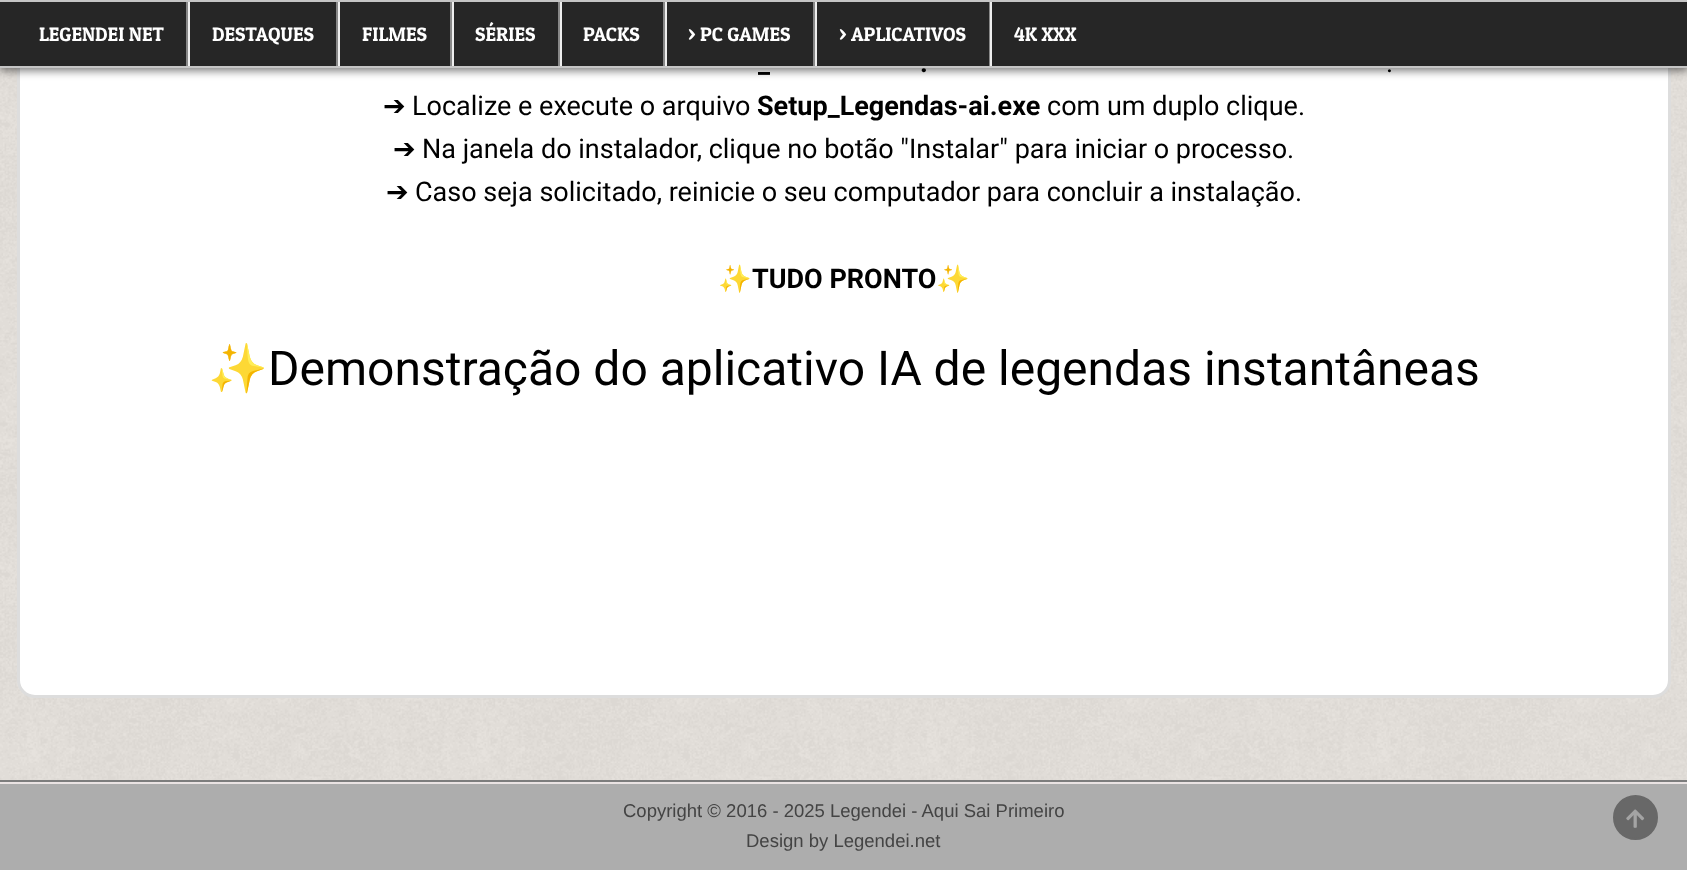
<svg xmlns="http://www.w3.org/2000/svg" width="1687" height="870">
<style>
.a{font:19.5px Patua One;fill:#fff}
.b{font:bold 27px Roboto;fill:#000}
.c{font:27px Roboto;fill:#000}
.d{font:27px DejaVu Sans;fill:#000}
.e{font:27px Noto Color Emoji;fill:#000}
.f{font:48px Noto Color Emoji;fill:#000}
.g{font:48px Roboto;fill:#000}
.h{font:18.5px Liberation Sans;fill:#444}
</style>
<rect width="100%" height="100%" fill="#fff"/>
<image href="1.png" x="0" y="68" width="1687" height="712"/>
<rect fill="#fff" stroke="#ddd" stroke-width="3" x="18.5" y="-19.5" width="1651" height="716" rx="16.5"/>
<path fill="#00000080" filter="blur(4px)" d="M0 3h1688v68H0z"/>
<path fill="#262626" d="M0 2h1687v64H0z"/>
<path fill="#c5c5c5" d="M0 0h1687v2H0z"/>
<path fill="#c5c5c5" d="M0 66h1687v2H0z"/>
<path fill="#888" d="M186 2h2v64H186z"/>
<path fill="#888" d="M336 2h2v64H336z"/>
<path fill="#eee" d="M188 2h2v64H188z"/>
<path fill="#888" d="M450 2h2v64H450z"/>
<path fill="#eee" d="M338 2h2v64H338z"/>
<path fill="#888" d="M558 2h2v64H558z"/>
<path fill="#eee" d="M452 2h2v64H452z"/>
<path fill="#888" d="M663 2h2v64H663z"/>
<path fill="#eee" d="M560 2h2v64H560z"/>
<path fill="#888" d="M813 2h2v64H813z"/>
<path fill="#eee" d="M665 2h2v64H665z"/>
<path fill="#888" d="M989 2h1v64H989z"/>
<path fill="#eee" d="M815 2h2v64H815z"/>
<path fill="#eee" d="M990 2h2v64H990z"/>
<path fill="#adadad" d="M0 784h1687v86H0z"/>
<path fill="#7d7d7d" d="M0 780h1687v2H0z"/>
<path fill="#eae3e3" d="M0 782h1687v2H0z"/>
<circle fill="#686868" stroke="#686868" stroke-width="2" cx="1635.5" cy="817.5" r="21.5"/>
<image href="2.png" x="1626" y="809" width="19" height="19"/>
<text class="a" x="39" y="41">LEGENDEI NET</text>
<text class="a" x="212" y="41">DESTAQUES</text>
<text class="a" x="362" y="41">FILMES</text>
<text class="a" x="475" y="41">SÉRIES</text>
<text class="a" x="583" y="41">PACKS</text>
<text class="a" x="688" y="41">&gt; PC GAMES</text>
<text class="a" x="839" y="41">&gt; APLICATIVOS</text>
<text class="a" x="1014" y="41">4K XXX</text>
<text class="b" x="920" y="72">.</text>
<text class="c" x="1386" y="72">.</text>
<text class="b" x="758" y="72">_</text>
<text class="d" x="383" y="115">➔</text>
<text class="c" x="412" y="115">Localize e execute o arquivo</text>
<text class="b" x="757" y="115">Setup_Legendas-ai.exe</text>
<text class="c" x="1047" y="115">com um duplo clique.</text>
<text class="d" x="393" y="158">➔</text>
<text class="c" x="422" y="158">Na janela do instalador, clique no botão "Instalar" para iniciar o processo.</text>
<text class="d" x="386" y="201">➔</text>
<text class="c" x="415" y="201">Caso seja solicitado, reinicie o seu computador para concluir a instalação.</text>
<text class="e" x="718" y="288">✨</text>
<text class="b" x="752" y="288">TUDO PRONTO</text>
<text class="e" x="936" y="288">✨</text>
<text class="f" x="208" y="385">✨</text>
<text class="g" x="268" y="385">Demonstração do aplicativo IA de legendas instantâneas</text>
<text class="h" x="623" y="817">Copyright © 2016 - 2025 Legendei - Aqui Sai Primeiro</text>
<text class="h" x="746" y="847">Design by Legendei.net</text>
</svg>
